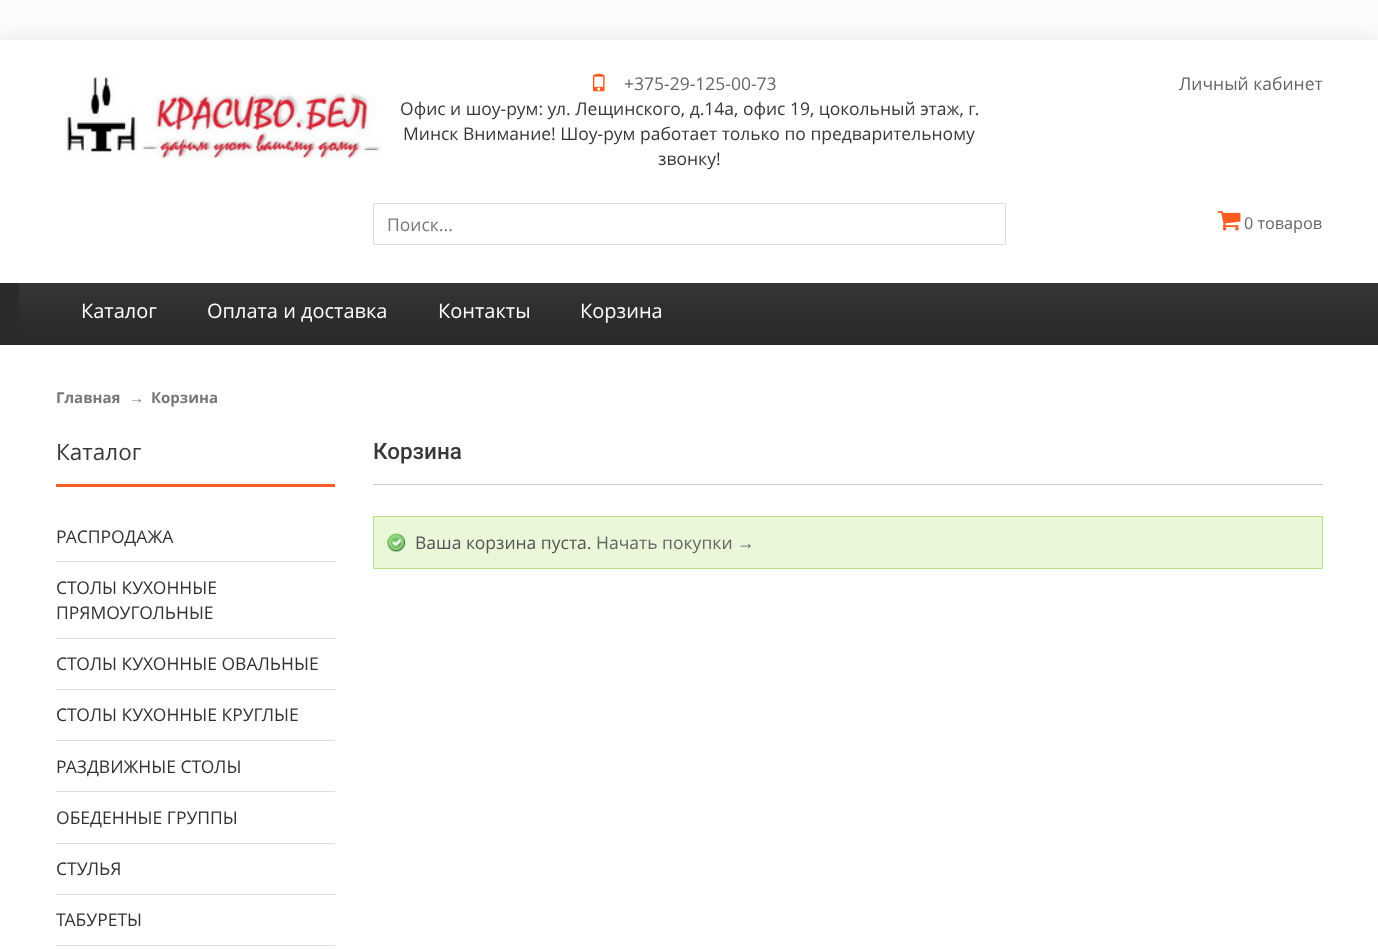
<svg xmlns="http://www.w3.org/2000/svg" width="1378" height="949">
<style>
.a{font:17.5px Open Sans;fill:#656565}
.b{font:17.5px Open Sans;fill:#393838}
.c{font:17.5px Open Sans;fill:#777}
.d{font:16.25px Open Sans;fill:#656565}
.e{font:20px Open Sans;fill:#fff}
.f{font:bold 15px Open Sans;fill:#777}
.g{font:bold 15px Liberation Sans;fill:#777}
.h{font:22.5px Open Sans;fill:#393838}
.i{font:17.5px Open Sans;fill:#323232}
.j{font:500 22.5px Roboto;fill:#393838}
.k{font:17.5px Open Sans;fill:#555}
.l{font:17.5px Liberation Sans;fill:#656565}
</style>
<defs>
<linearGradient id="g1" gradientUnits="userSpaceOnUse" x1="686" y1="282" x2="686" y2="345"><stop offset="0" stop-color="#363636"/><stop offset="0.5" stop-color="#2f2e2e"/><stop offset="1" stop-color="#292929"/></linearGradient>
</defs>
<rect width="100%" height="100%" fill="#fcfcfc"/>
<path fill="#0000001a" filter="blur(10px)" d="M0 40h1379v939H0z"/>
<path fill="#fff" d="M0 40h1378v909H0z"/>
<image href="1.png" x="65" y="77" width="317" height="82"/>
<image href="2.png" x="592" y="73" width="13" height="19"/>
<path fill="none" stroke="#ddd" d="M373.5 203.5h632v41H373.5z"/>
<image href="3.png" x="1217" y="211" width="24" height="20"/>
<path fill="url(#g1)" d="M19 283h1359v62H19z"/>
<path fill="#2b2b2b" d="M0 283h19v62H0z"/>
<path fill="#f85d25" d="M56 484h279v3H56z"/>
<path fill="#ddd" d="M56 561h279v1H56z"/>
<path fill="#ddd" d="M56 638h279v1H56z"/>
<path fill="#ddd" d="M56 689h279v1H56z"/>
<path fill="#ddd" d="M56 740h279v1H56z"/>
<path fill="#ddd" d="M56 791h279v1H56z"/>
<path fill="#ddd" d="M56 843h279v1H56z"/>
<path fill="#ddd" d="M56 894h279v1H56z"/>
<path fill="#ddd" d="M56 945h279v1H56z"/>
<path fill="#ccc" d="M373 484h950v1H373z"/>
<path fill="#eaf7d9" d="M374 517h948v51H374z"/>
<image href="4.png" x="387" y="533" width="19" height="19"/>
<path fill="none" stroke="#bbdf8d" d="M373.5 516.5h949v52H373.5z"/>
<text class="a" x="624" y="90">+375-29-125-00-73</text>
<text class="b" x="400" y="115">Офис и шоу-рум: ул. Лещинского, д.14а, офис 19, цокольный этаж, г.</text>
<text class="b" x="403" y="140">Минск Внимание! Шоу-рум работает только по предварительному</text>
<text class="b" x="658" y="165">звонку!</text>
<text class="a" x="1179" y="90">Личный кабинет</text>
<text class="c" x="387" y="231">Поиск...</text>
<text class="d" x="1244" y="229">0 товаров</text>
<text class="e" x="81" y="318">Каталог</text>
<text class="e" x="207" y="318">Оплата и доставка</text>
<text class="e" x="438" y="318">Контакты</text>
<text class="e" x="580" y="318">Корзина</text>
<text class="f" x="56" y="403">Главная</text>
<text class="g" x="129" y="403">→</text>
<text class="f" x="151" y="403">Корзина</text>
<text class="h" x="56" y="460">Каталог</text>
<text class="i" x="56" y="543">РАСПРОДАЖА</text>
<text class="i" x="56" y="594">СТОЛЫ КУХОННЫЕ</text>
<text class="i" x="56" y="619">ПРЯМОУГОЛЬНЫЕ</text>
<text class="i" x="56" y="670">СТОЛЫ КУХОННЫЕ ОВАЛЬНЫЕ</text>
<text class="i" x="56" y="721">СТОЛЫ КУХОННЫЕ КРУГЛЫЕ</text>
<text class="i" x="56" y="773">РАЗДВИЖНЫЕ СТОЛЫ</text>
<text class="i" x="56" y="824">ОБЕДЕННЫЕ ГРУППЫ</text>
<text class="i" x="56" y="875">СТУЛЬЯ</text>
<text class="i" x="56" y="926">ТАБУРЕТЫ</text>
<text class="j" x="373" y="459">Корзина</text>
<text class="k" x="415" y="549">Ваша корзина пуста.</text>
<text class="a" x="596" y="549">Начать покупки</text>
<text class="l" x="737" y="549">→</text>
</svg>
